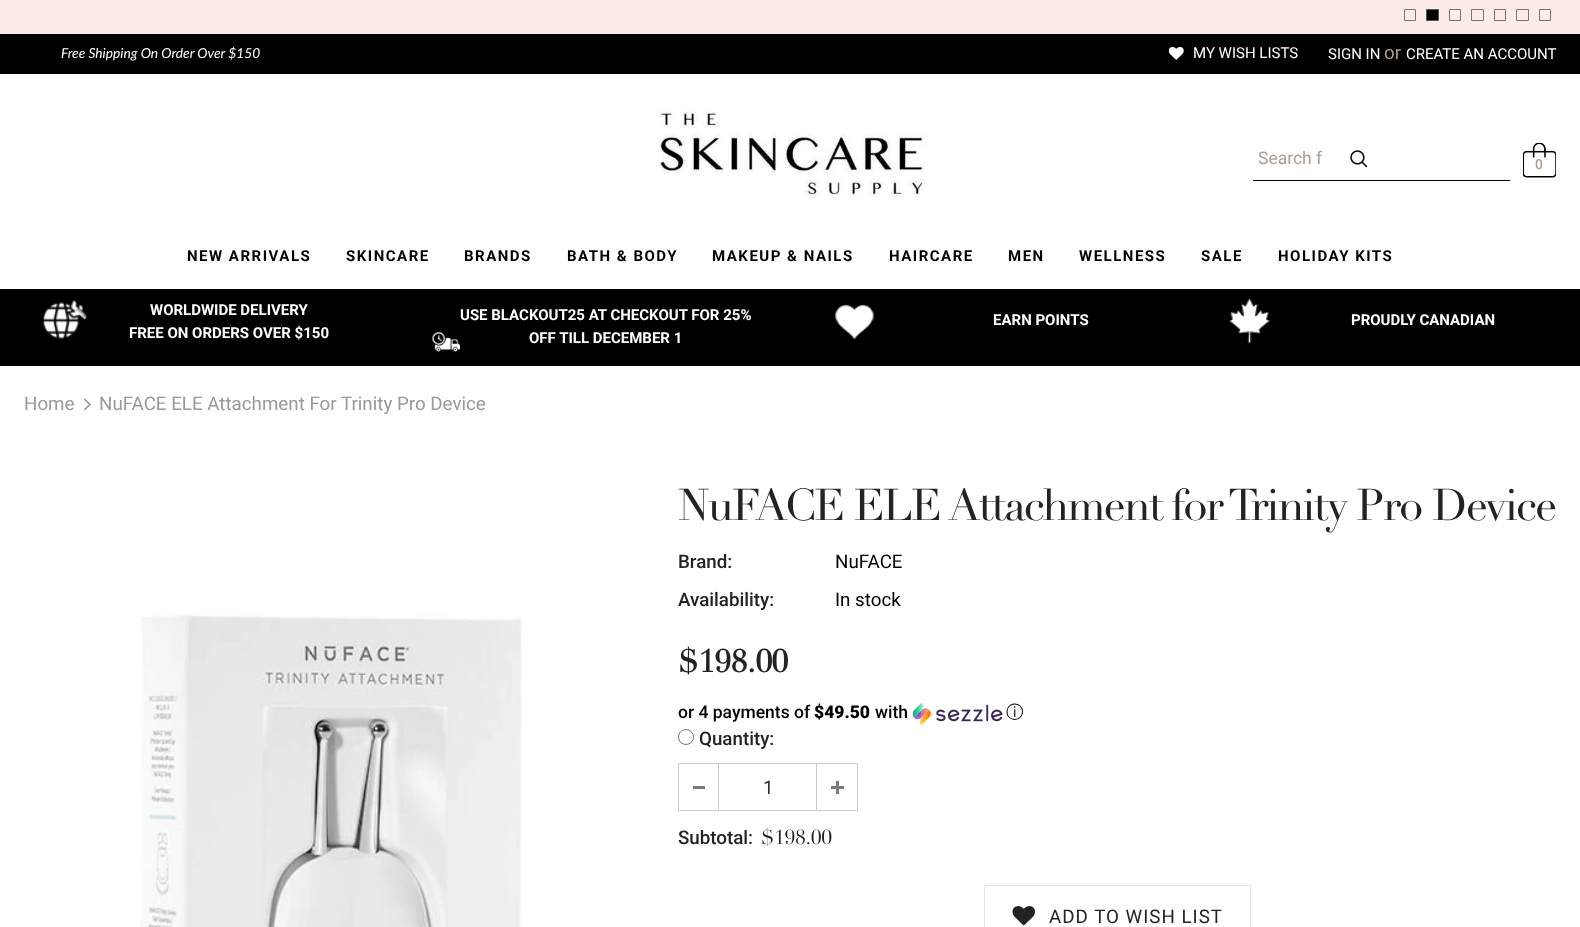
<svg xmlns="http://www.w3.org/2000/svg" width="1580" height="927">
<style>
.a{font:italic 13.75px Lato;fill:#fff}
.b{font:15px Roboto;fill:#fff}
.c{font:18.75px Roboto;fill:#ac9d93}
.d{font:17.5px Roboto;fill:#ac9d93}
.e{font:500 13.75px Roboto;fill:#ac9d93}
.f{font:bold 15px Roboto;letter-spacing:1.5px;fill:#000}
.g{font:bold 15px Roboto;fill:#fff}
.h{font:18.75px Roboto;fill:#999}
.i{font:43.75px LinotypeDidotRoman;letter-spacing:-1.75px;fill:#232323}
.j{font:500 18.75px Roboto;fill:#232323}
.k{font:18.75px Roboto;fill:#000}
.l{font:bold 31px LinotypeDidotRoman;fill:#232323}
.m{font:500 17.5px Roboto;fill:#000}
.n{font:900 17.5px Roboto;fill:#000}
.o{font:500 17.5px WenQuanYi Zen Hei;fill:#000}
.p{font:18.75px Roboto;fill:#2d2d2d}
.q{font:20px LinotypeDidotRoman;fill:#232323}
.r{font:18.75px Roboto;letter-spacing:1px;fill:#232323}
</style>
<rect width="100%" height="100%" fill="#fff"/>
<path fill="#fdebea" d="M0 0h1580v34H0z"/>
<path fill="none" stroke="#707979" d="M1404.5 9.5h11v11H1404.5z"/>
<path fill="#000" stroke="#505656" d="M1426.5 9.5h12v11H1426.5z"/>
<path fill="none" stroke="#707979" d="M1449.5 9.5h11v11H1449.5z"/>
<path fill="none" stroke="#707979" d="M1471.5 9.5h12v11H1471.5z"/>
<path fill="none" stroke="#707979" d="M1494.5 9.5h11v11H1494.5z"/>
<path fill="none" stroke="#707979" d="M1516.5 9.5h12v11H1516.5z"/>
<path fill="none" stroke="#707979" d="M1539.5 9.5h11v11H1539.5z"/>
<path fill="#000" d="M0 34h1580v40H0z"/>
<image href="1.png" x="1168" y="47" width="16" height="13"/>
<image href="2.png" x="657" y="110" width="268" height="88"/>
<path fill="#000" d="M1253 180h257v1H1253z"/>
<image href="3.png" x="1350" y="150" width="18" height="18"/>
<image href="4.png" x="1523" y="143" width="33" height="35"/>
<path fill="#000" d="M0 289h1580v77H0z"/>
<image href="5.png" x="42" y="300" width="45" height="39"/>
<image href="6.png" x="432" y="331" width="28" height="21"/>
<image href="7.png" x="834" y="304" width="40" height="35"/>
<image href="8.png" x="1228" y="298" width="43" height="45"/>
<image href="9.png" x="84" y="398" width="7" height="13"/>
<image href="10.png" x="140" y="614" width="382" height="313"/>
<image href="11.png" x="913" y="703" width="90" height="22"/>
<circle fill="none" stroke="#767676" cx="686" cy="737" r="7.5"/>
<path fill="none" stroke="#cbcbcb" d="M678.5 763.5h179v47H678.5z"/>
<path fill="#cbcbcb" d="M718 764h1v46H718z"/>
<path fill="#7b7b7b" d="M693 786h12v3H693z"/>
<path fill="#cbcbcb" d="M816 764h1v46H816z"/>
<path fill="#7b7b7b" d="M831 786h13v3H831z"/>
<path fill="#7b7b7b" d="M836 781h3v13H836z"/>
<path fill="none" stroke="#e6e6e6" d="M984.5 885.5h266v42H984.5z"/>
<image href="12.png" x="1012" y="906" width="23" height="20"/>
<text class="a" x="61" y="58">Free Shipping On Order Over $150</text>
<text class="b" x="1193" y="58">MY WISH LISTS</text>
<text class="b" x="1328" y="59">SIGN IN</text>
<text class="c" x="1384" y="59">or</text>
<text class="b" x="1406" y="59">CREATE AN ACCOUNT</text>
<text class="d" x="1258" y="164">Search f</text>
<text class="e" x="1535" y="169">0</text>
<text class="f" x="187" y="261">NEW ARRIVALS</text>
<text class="f" x="346" y="261">SKINCARE</text>
<text class="f" x="464" y="261">BRANDS</text>
<text class="f" x="567" y="261">BATH &amp; BODY</text>
<text class="f" x="712" y="261">MAKEUP &amp; NAILS</text>
<text class="f" x="889" y="261">HAIRCARE</text>
<text class="f" x="1008" y="261">MEN</text>
<text class="f" x="1079" y="261">WELLNESS</text>
<text class="f" x="1201" y="261">SALE</text>
<text class="f" x="1278" y="261">HOLIDAY KITS</text>
<text class="g" x="150" y="315">WORLDWIDE DELIVERY</text>
<text class="g" x="129" y="338">FREE ON ORDERS OVER $150</text>
<text class="g" x="460" y="320">USE BLACKOUT25 AT CHECKOUT FOR 25%</text>
<text class="g" x="529" y="343">OFF TILL DECEMBER 1</text>
<text class="g" x="993" y="325">EARN POINTS</text>
<text class="g" x="1351" y="325">PROUDLY CANADIAN</text>
<text class="h" x="24" y="410">Home</text>
<text class="h" x="99" y="410">NuFACE ELE Attachment For Trinity Pro Device</text>
<text class="i" x="678" y="520">NuFACE ELE Attachment for Trinity Pro Device</text>
<text class="j" x="678" y="568">Brand:</text>
<text class="k" x="835" y="568">NuFACE</text>
<text class="j" x="678" y="606">Availability:</text>
<text class="k" x="835" y="606">In stock</text>
<text class="l" x="678" y="672">$198.00</text>
<text class="m" x="678" y="718">or 4 payments of</text>
<text class="n" x="814" y="718">$49.50</text>
<text class="m" x="875" y="718">with</text>
<text class="o" x="1006" y="718">ⓘ</text>
<text class="j" x="699" y="745">Quantity:</text>
<text class="p" x="763" y="794">1</text>
<text class="j" x="678" y="844">Subtotal:</text>
<text class="q" x="761" y="844">$198.00</text>
<text class="r" x="1049" y="923">ADD TO WISH LIST</text>
</svg>
